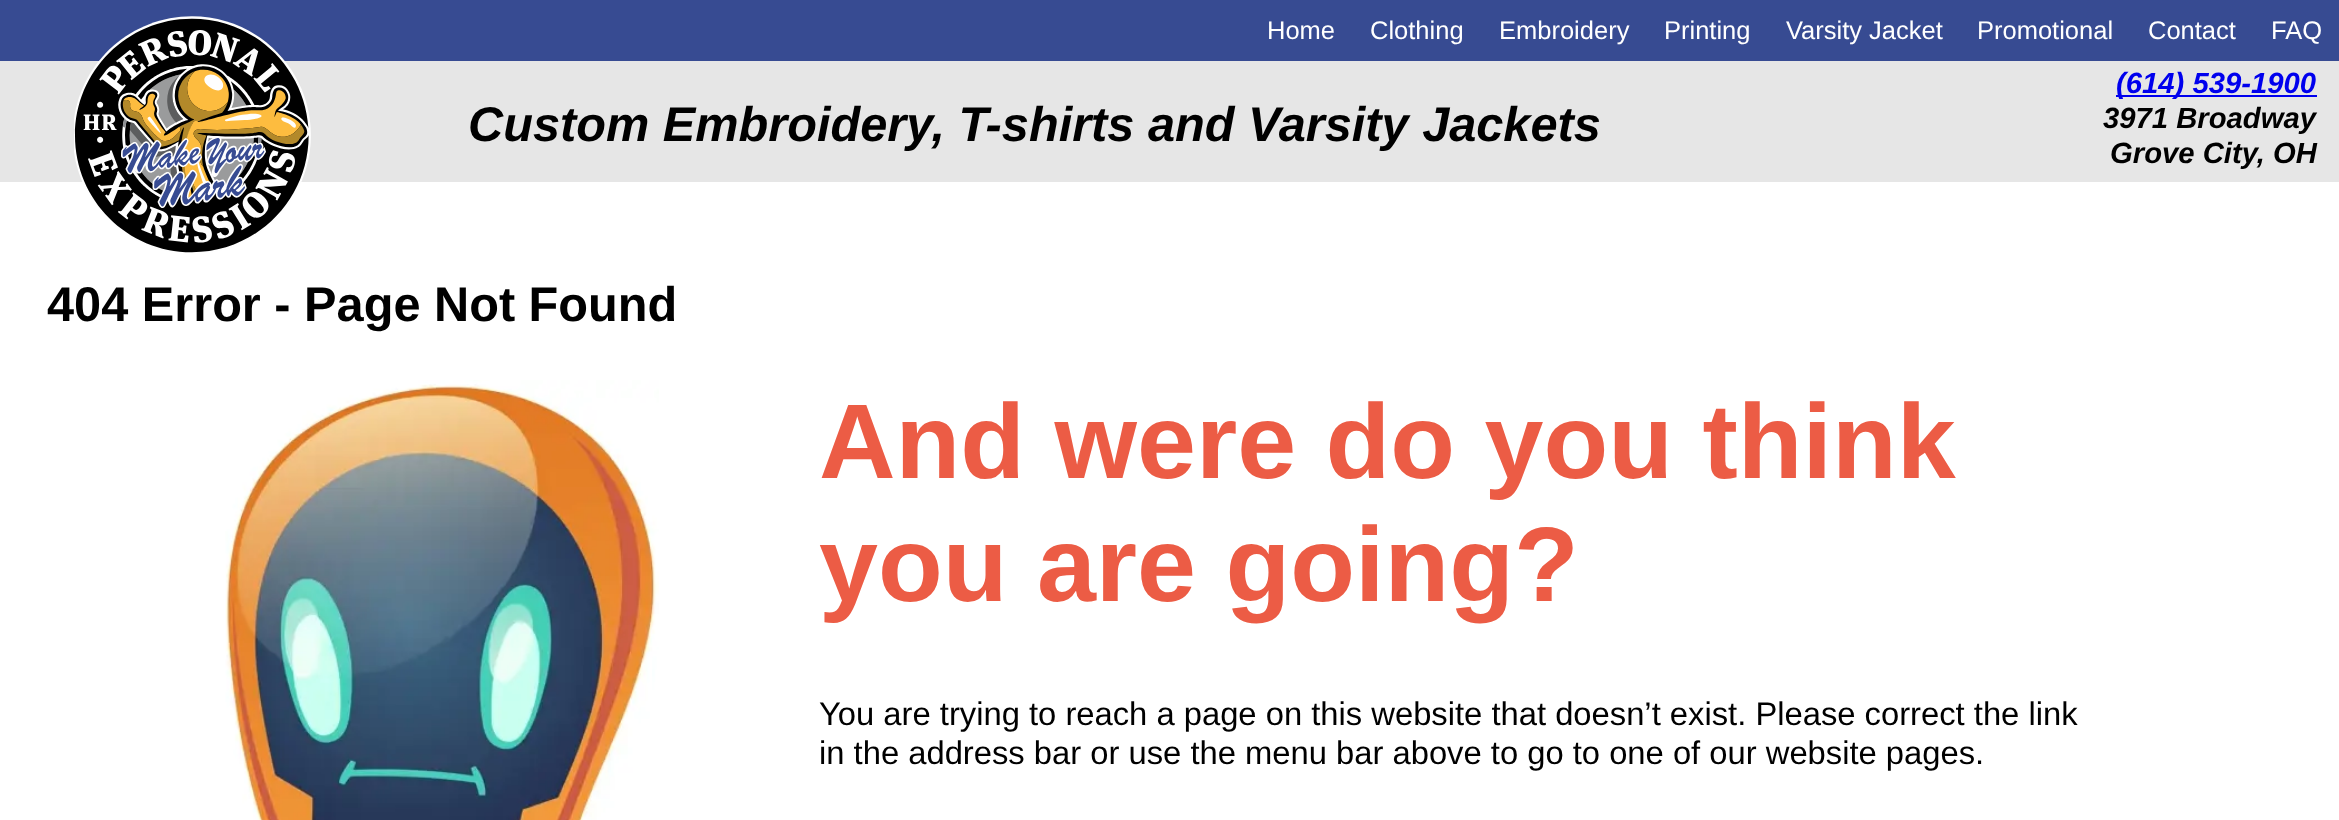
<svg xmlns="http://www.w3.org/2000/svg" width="2339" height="820">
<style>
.a{font:25.5px Liberation Sans;fill:#fff}
.b{font:italic bold 48.7px Liberation Sans;fill:#000}
.c{font:italic bold 29.25px Liberation Sans;fill:#00e}
.d{font:italic bold 29.25px Liberation Sans;fill:#000}
.e{font:bold 48.7px Liberation Sans;fill:#000}
.f{font:bold 106px Liberation Sans;fill:#ec5c45}
.g{font:32.75px Liberation Sans;fill:#000}
</style>
<rect width="100%" height="100%" fill="#fff"/>
<path fill="#374b92" d="M0 0h2339v61H0z"/>
<path fill="#e6e6e6" d="M0 61h2339v121H0z"/>
<image href="1.png" x="74" y="16" width="237" height="237"/>
<path fill="#00e" d="M2116 95h201v2H2116z"/>
<image href="2.png" x="225" y="380" width="434" height="440"/>
<text class="a" x="1267" y="39">Home</text>
<text class="a" x="1370" y="39">Clothing</text>
<text class="a" x="1499" y="39">Embroidery</text>
<text class="a" x="1664" y="39">Printing</text>
<text class="a" x="1786" y="39">Varsity Jacket</text>
<text class="a" x="1977" y="39">Promotional</text>
<text class="a" x="2148" y="39">Contact</text>
<text class="a" x="2271" y="39">FAQ</text>
<text class="b" x="468" y="141">Custom Embroidery, T-shirts and Varsity Jackets</text>
<text class="c" x="2116" y="93">(614) 539-1900</text>
<text class="d" x="2103" y="128">3971 Broadway</text>
<text class="d" x="2110" y="163">Grove City, OH</text>
<text class="e" x="47" y="321">404 Error - Page Not Found</text>
<text class="f" x="819" y="478">And were do you think</text>
<text class="f" x="819" y="601">you are going?</text>
<text class="g" x="819" y="725">You are trying to reach a page on this website that doesn’t exist. Please correct the link</text>
<text class="g" x="819" y="764">in the address bar or use the menu bar above to go to one of our website pages.</text>
</svg>
